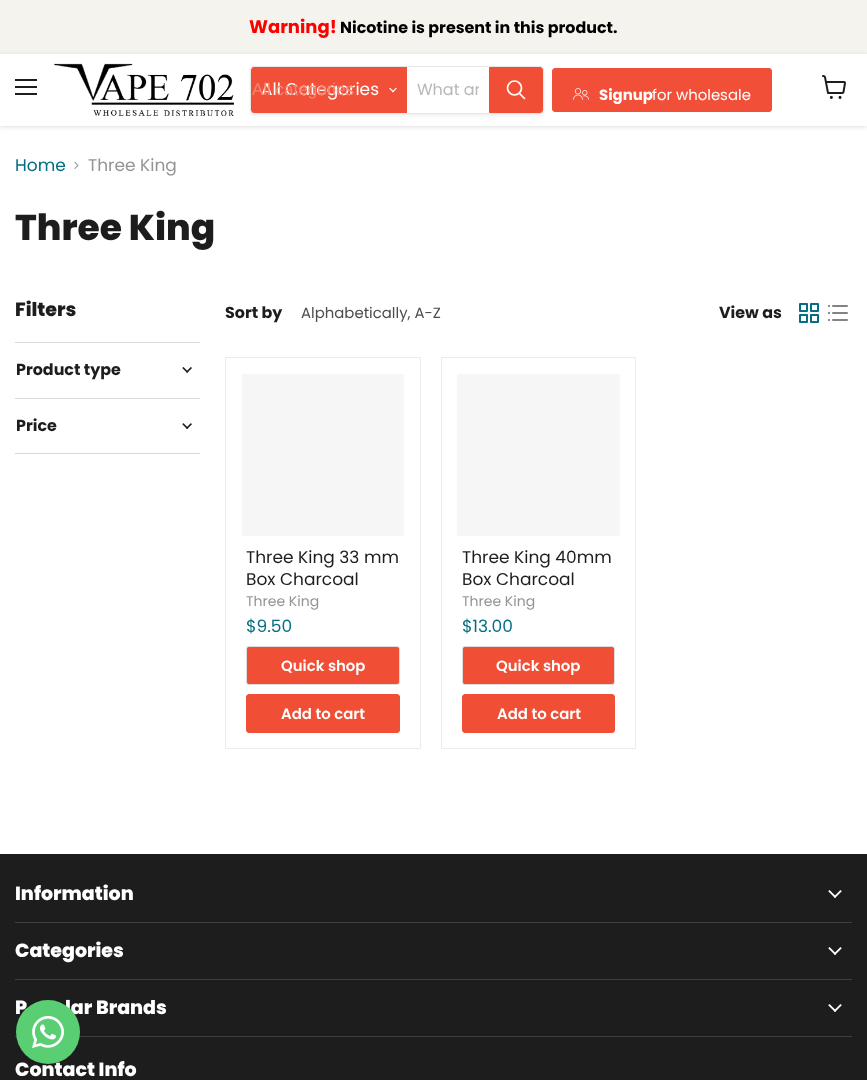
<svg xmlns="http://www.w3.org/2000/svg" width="867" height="1080">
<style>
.a{font:bold 18px Poppins;fill:#f00}
.b{font:bold 15.9px Poppins;fill:#000}
.c{font:17px Poppins;fill:#fff}
.d{font:17px Liberation Sans;fill:#f58473}
.e{font:16px Poppins;fill:#b8b8b8}
.f{font:bold 14.9px Poppins;fill:#fff}
.g{font:14.9px Poppins;fill:#fff}
.h{font:17px Poppins;fill:#046e82}
.i{font:17px Poppins;fill:#949494}
.j{font:800 36px Poppins;fill:#1d1d1d}
.k{font:800 19px Poppins;fill:#1d1d1d}
.l{font:bold 15.9px Poppins;fill:#1d1d1d}
.m{font:14.9px Poppins;fill:#4d4d4d}
.n{font:17px Poppins;fill:#1d1d1d}
.o{font:14px Poppins;fill:#949494}
.p{font:600 14.9px Poppins;fill:#fff}
.q{font:800 19px Poppins;fill:#fff}
</style>
<defs>
<clipPath id="clip1"><path d="M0 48h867v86h-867zm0 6h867v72h-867z" clip-rule="evenodd"/></clipPath>
<clipPath id="clip2"><path d="M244 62h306v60h-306zm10 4h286c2 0 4 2 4 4v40c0 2-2 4-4 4h-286c-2 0-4-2-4-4v-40c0-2 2-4 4-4z" clip-rule="evenodd"/></clipPath>
<clipPath id="clip3"><path d="M417 77h62v25H417z"/></clipPath>
</defs>
<rect width="100%" height="100%" fill="#fff"/>
<path fill="#f5f3ed" d="M0 0h867v54H0z"/>
<g clip-path="url(#clip1)">
<path fill="#80808040" filter="blur(2px)" d="M0 55h867v72H0z"/>
</g>
<path fill="#1d1d1d" d="M15 79h22v2H15z"/>
<path fill="#1d1d1d" d="M15 86h22v2H15z"/>
<path fill="#1d1d1d" d="M15 93h22v2H15z"/>
<image href="1.png" x="54" y="63" width="180" height="53"/>
<g clip-path="url(#clip2)">
<rect fill="#8080801c" filter="blur(1.5px)" x="250" y="68" width="294" height="48" rx="4"/>
</g>
<rect fill="none" stroke="#80808033" x="250.5" y="66.5" width="293" height="47" rx="3.5"/>
<path fill="#f14f37" d="M254 67h153v46h-153c-1.5 0-3-1.5-3-3v-40c0-1.5 1.5-3 3-3z"/>
<image href="2.png" x="389" y="87" width="8" height="6"/>
<path fill="#f04f36" stroke="#f04f36" d="M489.5 67.5h50.5c1.5 0 2.5 1 2.5 2.5v40c0 1.5-1 2.5-2.5 2.5h-50.5z"/>
<path fill="none" stroke="#fff" stroke-width="1.7" stroke-linecap="round" d="M524.5 98.5l-5-5"/>
<circle fill="none" stroke="#fff" stroke-width="1.7" cx="514.5" cy="88" r="7"/>
<rect fill="#f14f37" stroke="#f14f37" x="552.5" y="68.5" width="219" height="43" rx="2.5"/>
<image href="3.png" x="573" y="88" width="16" height="12"/>
<image href="4.png" x="822" y="75" width="24" height="24"/>
<image href="5.png" x="74" y="162" width="5" height="7"/>
<path fill="#d9d9d9" d="M15 342h185v1H15z"/>
<image href="6.png" x="182" y="367" width="10" height="6"/>
<path fill="#d9d9d9" d="M15 398h185v1H15z"/>
<path fill="#d9d9d9" d="M15 453h185v1H15z"/>
<image href="7.png" x="182" y="423" width="10" height="6"/>
<image href="8.png" x="799" y="303" width="20" height="20"/>
<image href="9.png" x="828" y="305" width="20" height="16"/>
<path fill="none" stroke="#ebebeb" d="M225.5 357.5h195v391H225.5z"/>
<path fill="#f6f6f6" d="M242 374h162v162H242z"/>
<rect fill="#f04f36" stroke="#ddd" x="246.5" y="646.5" width="153" height="38" rx="2.5"/>
<rect fill="#f04f36" stroke="#f04f36" x="246.5" y="694.5" width="153" height="38" rx="2.5"/>
<path fill="none" stroke="#ebebeb" d="M441.5 357.5h194v391H441.5z"/>
<path fill="#f6f6f6" d="M457 374h163v162H457z"/>
<rect fill="#f04f36" stroke="#ddd" x="462.5" y="646.5" width="152" height="38" rx="2.5"/>
<rect fill="#f04f36" stroke="#f04f36" x="462.5" y="694.5" width="152" height="38" rx="2.5"/>
<path fill="#1d1d1d" d="M0 854h867v226H0z"/>
<path fill="#3f3f3f" d="M15 922h837v1H15z"/>
<image href="10.png" x="828" y="890" width="14" height="8"/>
<path fill="#3f3f3f" d="M15 979h837v1H15z"/>
<image href="10.png" x="828" y="947" width="14" height="8"/>
<path fill="#3f3f3f" d="M15 1036h837v1H15z"/>
<image href="10.png" x="828" y="1004" width="14" height="8"/>
<text class="a" x="249" y="33">Warning!</text>
<text class="b" x="340" y="33">Nicotine is present in this product.</text>
<text class="c" x="261" y="95">All Categories</text>
<text class="d" x="252" y="95">All categories</text>
<g clip-path="url(#clip3)">
<text class="e" x="417" y="95">What ar</text>
</g>
<text class="f" x="599" y="100">Signup</text>
<text class="g" x="652" y="100">for wholesale</text>
<text class="h" x="15" y="171">Home</text>
<text class="i" x="88" y="171">Three King</text>
<text class="j" x="15" y="240">Three King</text>
<text class="k" x="15" y="316">Filters</text>
<text class="l" x="16" y="375">Product type</text>
<text class="l" x="16" y="431">Price</text>
<text class="l" x="225" y="318">Sort by</text>
<text class="m" x="301" y="318">Alphabetically, A-Z</text>
<text class="l" x="719" y="318">View as</text>
<text class="n" x="246" y="563">Three King 33 mm</text>
<text class="n" x="246" y="585">Box Charcoal</text>
<text class="o" x="246" y="606">Three King</text>
<text class="h" x="246" y="632">$9.50</text>
<text class="p" x="281" y="671">Quick shop</text>
<text class="p" x="281" y="719">Add to cart</text>
<text class="n" x="462" y="563">Three King 40mm</text>
<text class="n" x="462" y="585">Box Charcoal</text>
<text class="o" x="462" y="606">Three King</text>
<text class="h" x="462" y="632">$13.00</text>
<text class="p" x="496" y="671">Quick shop</text>
<text class="p" x="497" y="719">Add to cart</text>
<text class="q" x="15" y="900">Information</text>
<text class="q" x="15" y="957">Categories</text>
<text class="q" x="15" y="1014">P</text>
<text class="q" x="65" y="1014">lar Brands</text>
<text class="q" x="15" y="1076">Contact Info</text>
<circle fill="#59ce72" cx="48" cy="1032" r="32"/>
<image href="11.png" x="32" y="1016" width="32" height="32"/>
</svg>
